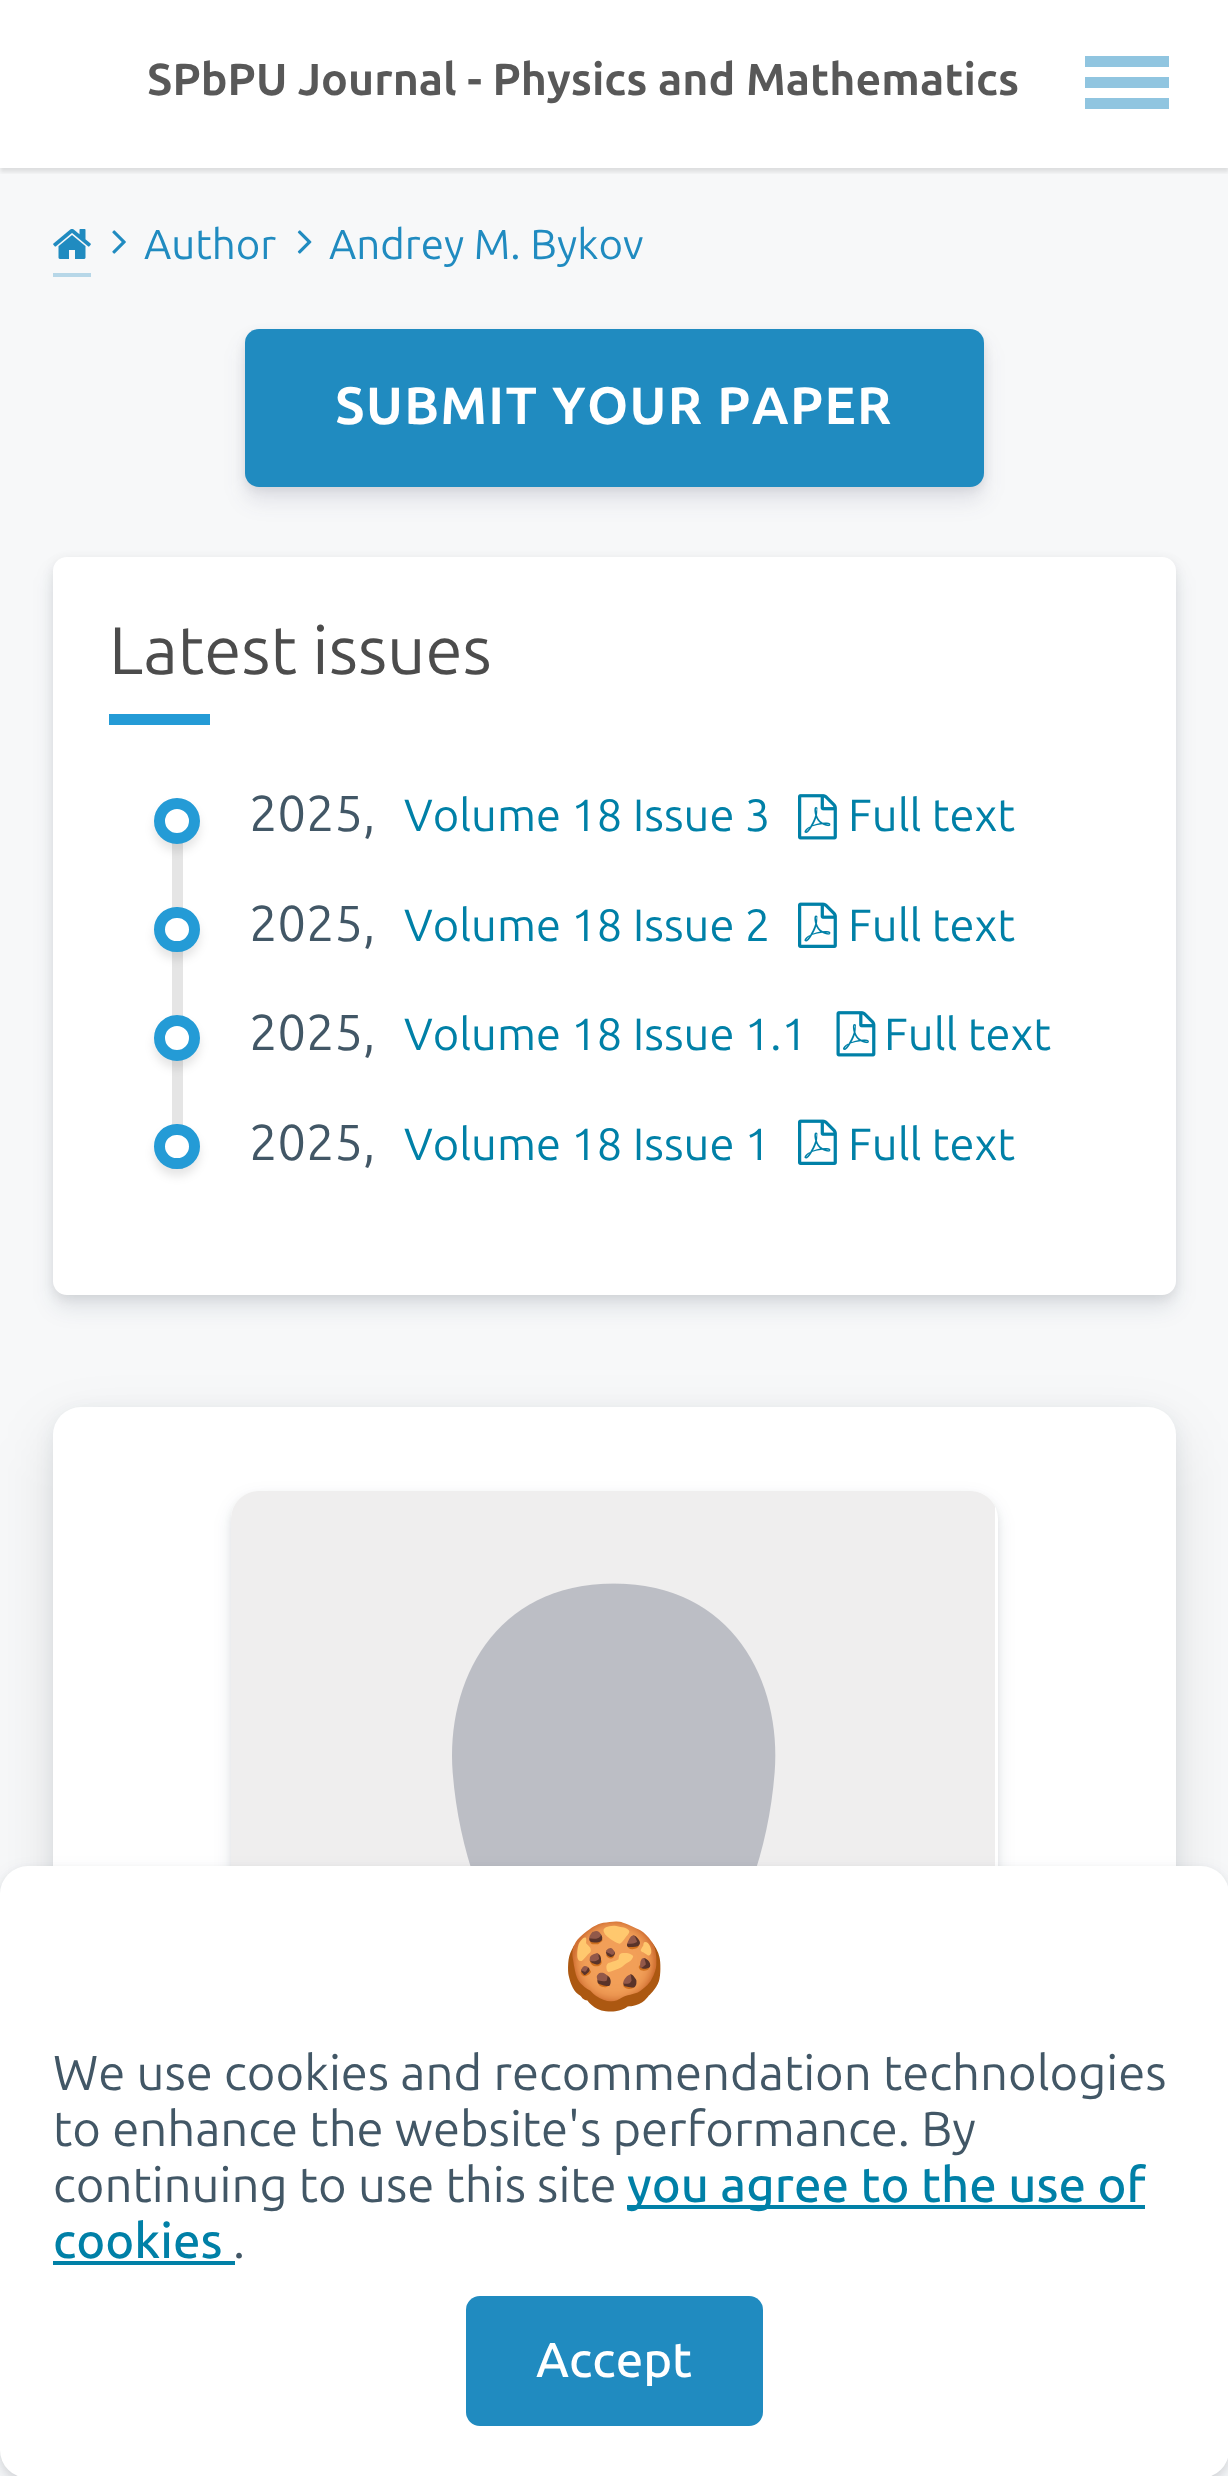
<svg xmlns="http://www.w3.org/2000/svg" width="1228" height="2476">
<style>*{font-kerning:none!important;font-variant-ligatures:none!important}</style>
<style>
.a{font:bold 44.75px Ubuntu;fill:#585858}
.b{font:42px Ubuntu;fill:#208bc0}
.c{font:bold 52.5px Ubuntu;letter-spacing:1.3px;fill:#fff}
.d{font:67.25px Ubuntu;fill:#4c4c4c}
.e{font:50.5px Ubuntu;fill:#425766}
.f{font:45.25px Ubuntu;fill:#0080a7}
.g{font:84px Noto Color Emoji;fill:#425766}
.h{font:49px Ubuntu;fill:#425766}
.i{font:500 49px Ubuntu;fill:#0080a7}
.j{font:500 49px Ubuntu;fill:#fff}
</style>
<defs>
<clipPath id="clip1"><path d="M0 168h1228v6H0z"/></clipPath>
<clipPath id="clip2"><path d="M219 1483h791v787h-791zm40 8h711c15.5 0 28 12.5 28 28v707c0 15.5-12.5 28-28 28h-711c-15.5 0-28-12.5-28-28v-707c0-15.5 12.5-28 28-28z" clip-rule="evenodd"/></clipPath>
<clipPath id="clip3"><path d="M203 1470h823v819h-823zm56 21h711c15.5 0 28 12.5 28 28v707c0 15.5-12.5 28-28 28h-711c-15.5 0-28-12.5-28-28v-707c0-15.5 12.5-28 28-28z" clip-rule="evenodd"/></clipPath>
</defs>
<rect width="100%" height="100%" fill="#fff"/>
<path fill="#f7f8f9" d="M0 168h1228v2308H0z"/>
<g clip-path="url(#clip1)">
<path fill="#0000001a" filter="blur(2px)" d="M0 4h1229v168H0z"/>
</g>
<path fill="#90c5e0" d="M1085 77h84v11H1085z"/>
<path fill="#90c5e0" d="M1085 56h84v11H1085z"/>
<path fill="#90c5e0" d="M1085 98h84v11H1085z"/>
<path fill="#b7d7e8" d="M53 273h38v4H53z"/>
<image href="1.png" x="53" y="229" width="38" height="30"/>
<image href="2.png" x="112" y="230" width="14" height="24"/>
<image href="3.png" x="297" y="230" width="15" height="24"/>
<rect fill="#00000014" filter="blur(5px)" x="245" y="333" width="739" height="157" rx="14"/>
<rect fill="#32325d1c" filter="blur(10.5px)" x="245" y="343" width="739" height="158" rx="14"/>
<rect fill="#208bc0" x="245" y="329" width="739" height="158" rx="14"/>
<rect fill="#00000014" filter="blur(5.5px)" x="53" y="560" width="1123" height="739" rx="14"/>
<rect fill="#0a254017" filter="blur(10.5px)" x="53" y="571" width="1123" height="738" rx="14"/>
<rect fill="#fff" x="53" y="557" width="1123" height="738" rx="14"/>
<path fill="#249bd6" d="M109 714h101v11H109z"/>
<path fill="#e5e5e5" d="M172 843h11v326H172z"/>
<rect fill="#0000001a" filter="blur(5px)" x="154" y="805" width="46" height="46" rx="23"/>
<circle fill="#fff" stroke="#249bd6" stroke-width="11" cx="177" cy="821" r="17.5"/>
<image href="4.png" x="798" y="794" width="39" height="46"/>
<rect fill="#0000001a" filter="blur(5px)" x="154" y="914" width="46" height="45" rx="22.5"/>
<rect fill="#fff" stroke="#249bd6" stroke-width="11" x="159.5" y="912.5" width="35" height="34" rx="17"/>
<image href="5.png" x="798" y="902" width="39" height="46"/>
<rect fill="#0000001a" filter="blur(5px)" x="154" y="1022" width="46" height="46" rx="23"/>
<circle fill="#fff" stroke="#249bd6" stroke-width="11" cx="177" cy="1038" r="17.5"/>
<image href="6.png" x="836" y="1011" width="40" height="46"/>
<rect fill="#0000001a" filter="blur(5px)" x="154" y="1131" width="46" height="45" rx="22.5"/>
<rect fill="#fff" stroke="#249bd6" stroke-width="11" x="159.5" y="1129.5" width="35" height="34" rx="17"/>
<image href="5.png" x="798" y="1119" width="39" height="46"/>
<rect fill="#0000001a" filter="blur(30px)" x="53" y="1432" width="1123" height="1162" rx="28"/>
<rect fill="#0a254012" filter="blur(9px)" x="53" y="1411" width="1123" height="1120" rx="28"/>
<rect fill="#fff" x="53" y="1407" width="1123" height="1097" rx="28"/>
<g clip-path="url(#clip2)">
<rect fill="#00000012" filter="blur(3.5px)" x="231" y="1495" width="767" height="763" rx="28"/>
</g>
<g clip-path="url(#clip3)">
<rect fill="#0a254017" filter="blur(9px)" x="231" y="1498" width="767" height="763" rx="28"/>
</g>
<image href="7.png" x="231" y="1491" width="764" height="375"/>
<rect fill="#00000012" filter="blur(3.5px)" y="1869" width="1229" height="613" rx="28"/>
<rect fill="#0a254017" filter="blur(9px)" y="1873" width="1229" height="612" rx="28"/>
<rect fill="#fff" y="1866" width="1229" height="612" rx="28"/>
<path fill="#0080a7" d="M627 2205h518v4H627z"/>
<path fill="#0080a7" d="M53 2261h182v4H53z"/>
<rect fill="#208bc0" x="466" y="2296" width="297" height="130" rx="14"/>
<text class="a" x="147" y="95">SPbPU Journal - Physics and Mathematics</text>
<text class="b" x="144" y="259">Author</text>
<text class="b" x="329" y="259">Andrey M. Bykov</text>
<text class="c" x="335" y="424">SUBMIT YOUR PAPER</text>
<text class="d" x="109" y="674">Latest issues</text>
<text class="e" x="249" y="831">2025,</text>
<text class="f" x="404" y="831">Volume 18 Issue 3</text>
<text class="f" x="848" y="831">Full text</text>
<text class="e" x="249" y="941">2025,</text>
<text class="f" x="404" y="941">Volume 18 Issue 2</text>
<text class="f" x="848" y="941">Full text</text>
<text class="e" x="249" y="1050">2025,</text>
<text class="f" x="404" y="1050">Volume 18 Issue 1.1</text>
<text class="f" x="884" y="1050">Full text</text>
<text class="e" x="249" y="1160">2025,</text>
<text class="f" x="404" y="1160">Volume 18 Issue 1</text>
<text class="f" x="848" y="1160">Full text</text>
<text class="g" x="562" y="1995">🍪</text>
<text class="h" x="53" y="2090">We use cookies and recommendation technologies</text>
<text class="h" x="53" y="2146">to enhance the website's performance. By</text>
<text class="h" x="53" y="2202">continuing to use this site</text>
<text class="i" x="627" y="2202">you agree to the use of</text>
<text class="i" x="53" y="2258">cookies</text>
<text class="h" x="233" y="2258">.</text>
<text class="j" x="536" y="2377">Accept</text>
</svg>
